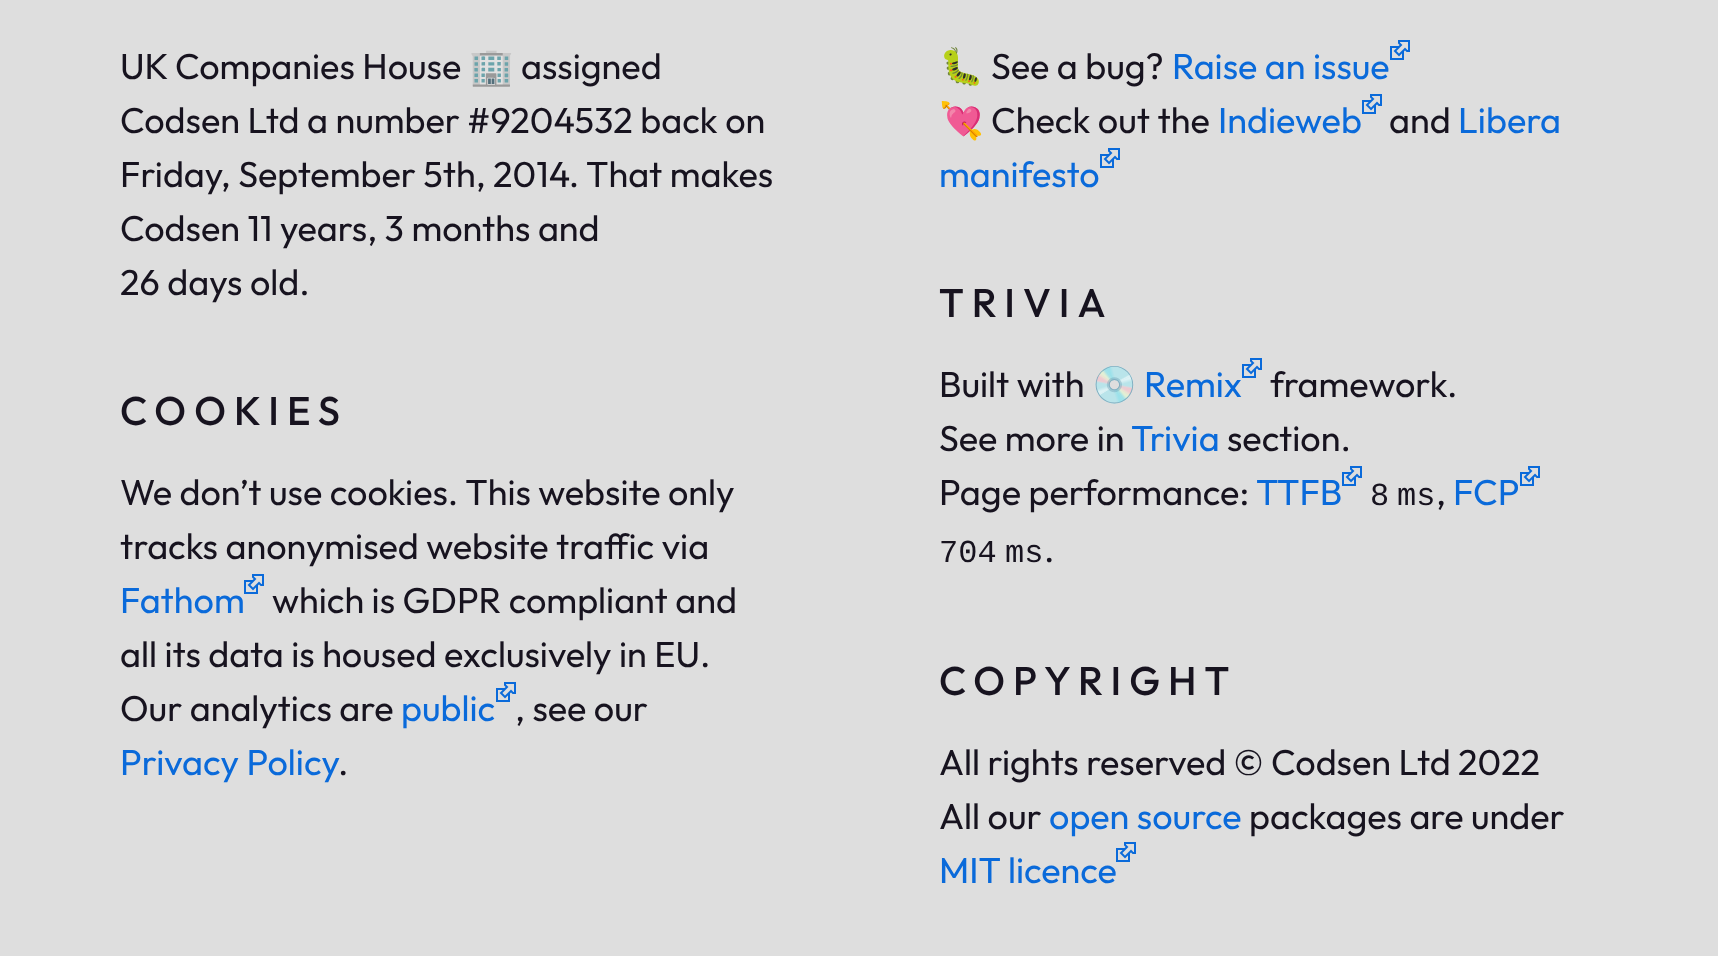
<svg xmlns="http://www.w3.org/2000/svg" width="1718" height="956">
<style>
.a{font:36px Outfit;fill:#17131f}
.b{font:36px Noto Color Emoji;fill:#17131f}
.c{font:500 40px Outfit;letter-spacing:8px;fill:#17131f}
.d{font:36px Outfit;fill:#0a6ada}
.e{font:36px Noto Color Emoji;fill:#0a6ada}
.f{font:32px Liberation Mono;fill:#17131f}
</style>
<rect width="100%" height="100%" fill="#dedede"/>
<image href="1.png" x="244" y="574" width="20" height="20"/>
<image href="1.png" x="496" y="682" width="20" height="20"/>
<image href="1.png" x="1390" y="40" width="20" height="20"/>
<image href="1.png" x="1362" y="94" width="20" height="20"/>
<image href="1.png" x="1100" y="148" width="20" height="20"/>
<image href="1.png" x="1242" y="358" width="20" height="20"/>
<image href="1.png" x="1342" y="466" width="20" height="20"/>
<image href="1.png" x="1520" y="466" width="20" height="20"/>
<image href="1.png" x="1116" y="842" width="20" height="20"/>
<text class="a" x="120" y="79">UK Companies House</text>
<text class="b" x="469" y="79">🏢</text>
<text class="a" x="521" y="79">assigned</text>
<text class="a" x="120" y="133">Codsen Ltd a number #9204532 back on</text>
<text class="a" x="120" y="187">Friday, September 5th, 2014.</text>
<text class="a" x="586" y="187">That makes</text>
<text class="a" x="120" y="241">Codsen 11 years, 3 months and</text>
<text class="a" x="120" y="295">26 days old.</text>
<text class="c" x="120" y="425">COOKIES</text>
<text class="a" x="120" y="505">We don’t use cookies. This website only</text>
<text class="a" x="120" y="559">tracks anonymised website traffic via</text>
<text class="d" x="120" y="613">Fathom</text>
<text class="a" x="272" y="613">which is GDPR compliant and</text>
<text class="a" x="120" y="667">all its data is housed exclusively in EU.</text>
<text class="a" x="120" y="721">Our analytics are</text>
<text class="d" x="401" y="721">public</text>
<text class="a" x="515" y="721">, see our</text>
<text class="d" x="120" y="775">Privacy Policy</text>
<text class="a" x="338" y="775">.</text>
<text class="b" x="939" y="79">🐛</text>
<text class="a" x="991" y="79">See a bug?</text>
<text class="d" x="1172" y="79">Raise an issue</text>
<text class="b" x="939" y="133">💘</text>
<text class="a" x="991" y="133">Check out the</text>
<text class="d" x="1218" y="133">Indieweb</text>
<text class="a" x="1389" y="133">and</text>
<text class="d" x="1458" y="133">Libera</text>
<text class="d" x="939" y="187">manifesto</text>
<text class="c" x="939" y="317">TRIVIA</text>
<text class="a" x="939" y="397">Built with</text>
<text class="e" x="1092" y="397">💿</text>
<text class="d" x="1144" y="397">Remix</text>
<text class="a" x="1270" y="397">framework.</text>
<text class="a" x="939" y="451">See more in</text>
<text class="d" x="1131" y="451">Trivia</text>
<text class="a" x="1227" y="451">section.</text>
<text class="a" x="939" y="505">Page performance:</text>
<text class="d" x="1256" y="505">TTFB</text>
<text class="f" x="1370" y="505">8</text>
<text class="f" x="1397" y="505">ms</text>
<text class="a" x="1436" y="505">,</text>
<text class="d" x="1453" y="505">FCP</text>
<text class="f" x="939" y="562">704</text>
<text class="f" x="1005" y="562">ms</text>
<text class="a" x="1044" y="562">.</text>
<text class="c" x="939" y="695">COPYRIGHT</text>
<text class="a" x="939" y="775">All rights reserved © Codsen Ltd 2022</text>
<text class="a" x="939" y="829">All our</text>
<text class="d" x="1049" y="829">open source</text>
<text class="a" x="1249" y="829">packages are under</text>
<text class="d" x="939" y="883">MIT licence</text>
</svg>
